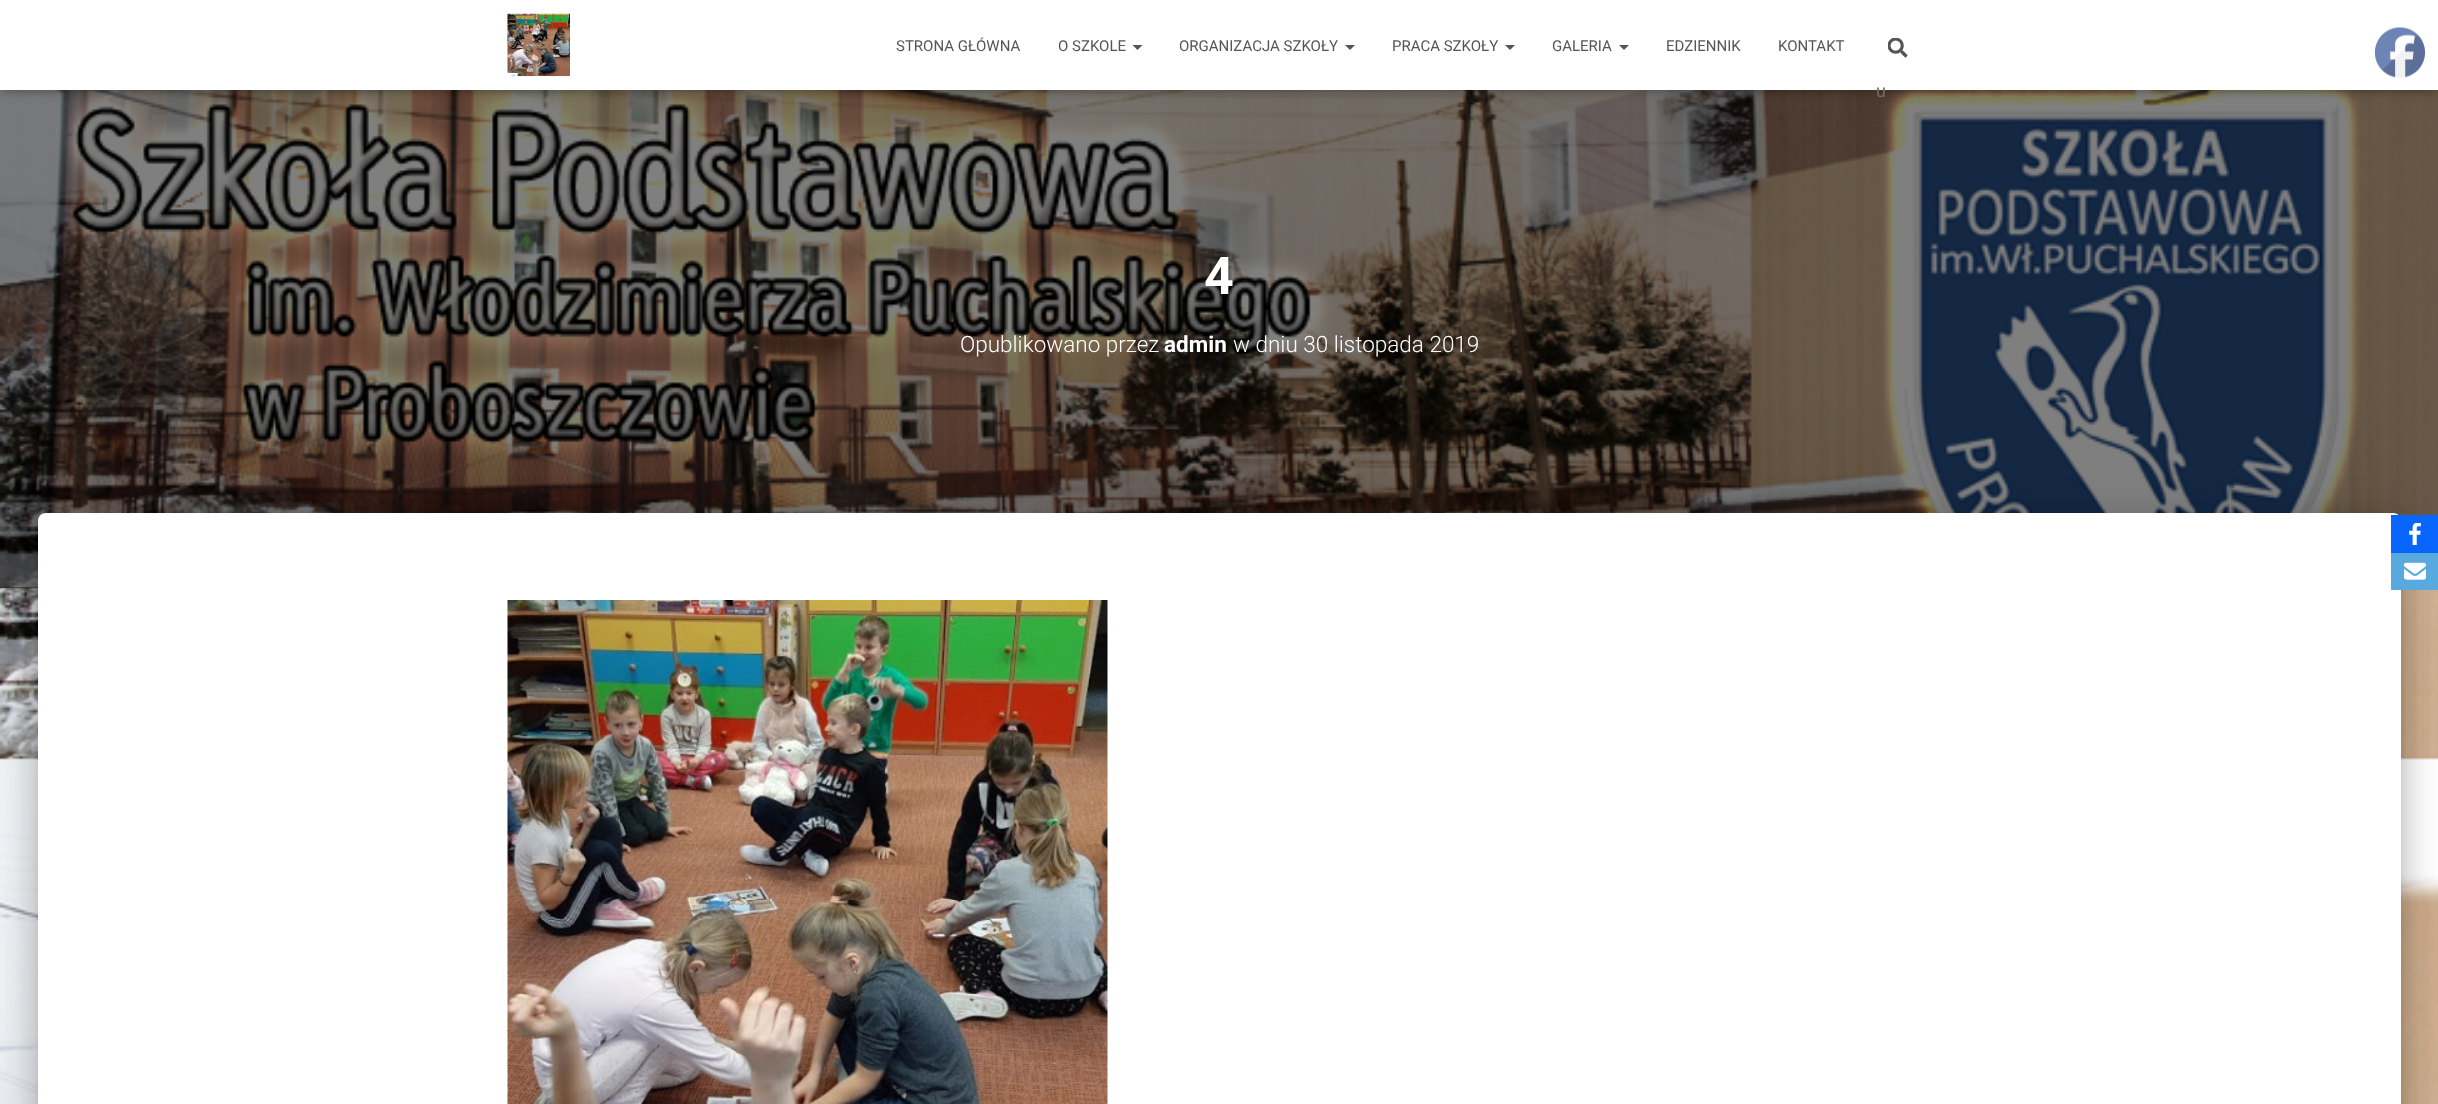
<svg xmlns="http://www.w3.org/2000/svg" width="2438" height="1104">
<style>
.a{font:15px Roboto;fill:#555}
.b{font:18px Roboto;fill:#776b64}
.c{font:bold 52px Roboto;fill:#fff}
.d{font:300 22.5px Roboto;fill:#fff}
.e{font:bold 22.5px Roboto;fill:#fff}
</style>
<rect width="100%" height="100%" fill="#fff"/>
<image href="1.png" x="0" y="587" width="2438" height="517"/>
<image href="4.png" x="0" y="90" width="2438" height="498"/>
<path fill="#00000080" d="M0 90h2438v498H0z"/>
<path fill="#0000001a" filter="blur(3px)" d="M3 8h2433v85H3z"/>
<path fill="#0000001f" filter="blur(6px)" d="M0 1h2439v90H0z"/>
<path fill="#0000006b" filter="blur(6px)" d="M8 9h2423v75H8z"/>
<path fill="#fff" d="M0 0h2438v90H0z"/>
<image href="2.png" x="507" y="13" width="63" height="64"/>
<path fill="#555" d="M1132.5 45h10l-5 5z"/>
<path fill="#555" d="M1345 45h10l-5 5z"/>
<path fill="#555" d="M1505 45h10l-5 5z"/>
<path fill="#555" d="M1619 45h10l-5 5z"/>
<image href="3.png" x="1888" y="38" width="20" height="20"/>
<rect fill="#00000033" filter="blur(6px)" x="44" y="529" width="2351" height="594" rx="1"/>
<rect fill="#0000001f" filter="blur(19px)" x="31" y="514" width="2377" height="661" rx="14"/>
<rect fill="#00000024" filter="blur(15px)" x="35" y="530" width="2369" height="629" rx="10"/>
<path fill="#fff" d="M46 513h2347c4.5 0 8 3.5 8 8v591h-2363v-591c0-4.5 3.5-8 8-8z"/>
<image href="5.png" x="507" y="600" width="601" height="504"/>
<image href="6.png" x="2375" y="27" width="50" height="51"/>
<path fill="#0866ff" d="M2391 515h47v38H2391z"/>
<image href="7.png" x="2409" y="523" width="12" height="22"/>
<path fill="#58a9de" d="M2391 553h47v37H2391z"/>
<image href="8.png" x="2404" y="562" width="22" height="18"/>
<text class="a" x="896" y="51">STRONA GŁÓWNA</text>
<text class="a" x="1058" y="51">O SZKOLE</text>
<text class="a" x="1179" y="51">ORGANIZACJA SZKOŁY</text>
<text class="a" x="1392" y="51">PRACA SZKOŁY</text>
<text class="a" x="1552" y="51">GALERIA</text>
<text class="a" x="1666" y="51">EDZIENNIK</text>
<text class="a" x="1778" y="51">KONTAKT</text>
<text class="b" x="1876" y="97">u</text>
<text class="c" x="1204" y="294">4</text>
<text class="d" x="960" y="352">Opublikowano przez</text>
<text class="e" x="1164" y="352">admin</text>
<text class="d" x="1233" y="352">w dniu 30 listopada 2019</text>
</svg>
